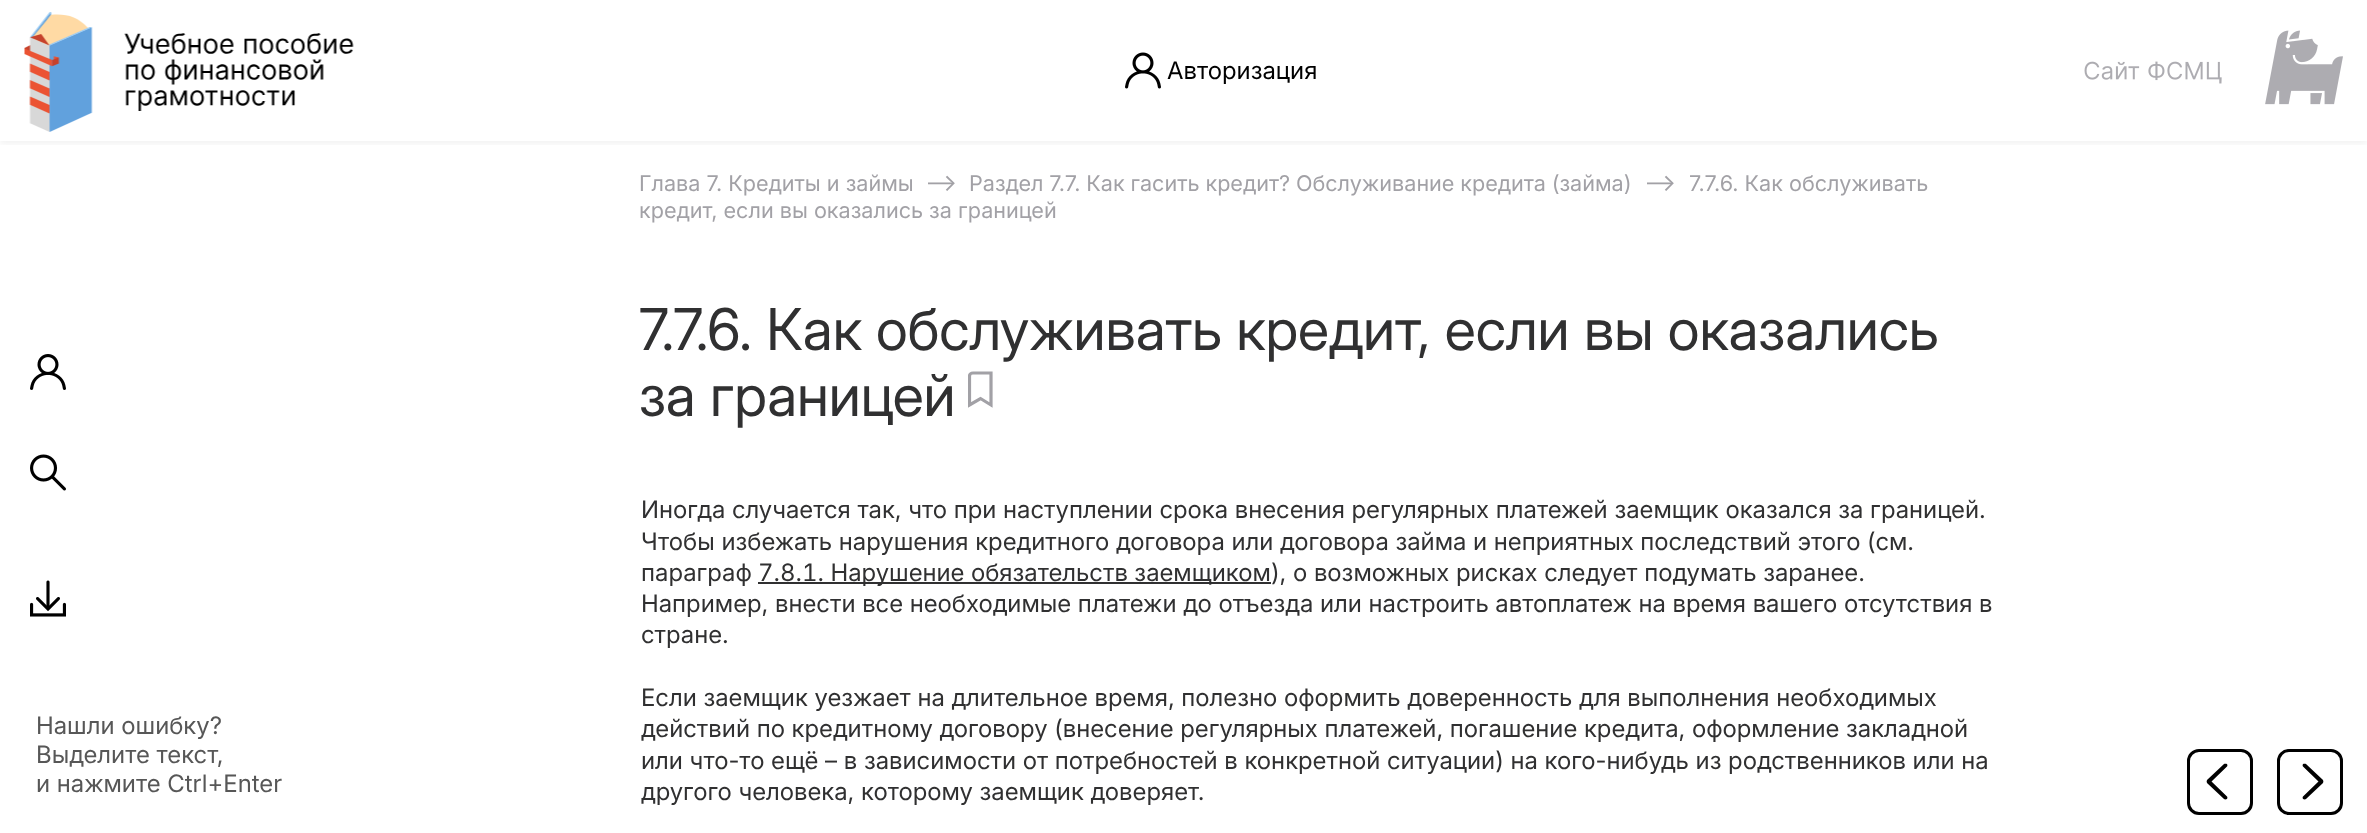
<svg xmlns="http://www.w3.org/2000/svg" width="2367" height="833">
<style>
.a{font:24px 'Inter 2';fill:#000}
.b{font:21.6px Inter;fill:#a2a1a6}
.c{font:24px Inter;fill:#a2a1a6}
.d{font:24px 'Inter 2';fill:#575757}
.e{font:57.6px 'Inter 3';fill:#303031}
.f{font:24px 'Inter 2';fill:#303031}
.g{font:24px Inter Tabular;fill:#303031}
</style>
<defs>
<clipPath id="clip1"><path d="M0 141h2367v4H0z"/></clipPath>
<clipPath id="clip2"><path d="M968 371h25v39H968z"/></clipPath>
</defs>
<rect width="100%" height="100%" fill="#fff"/>
<g clip-path="url(#clip1)">
<path fill="#0000000d" filter="blur(3px)" d="M0 3h2367v141H0z"/>
</g>
<image href="1.png" x="24" y="12" width="330" height="120"/>
<image href="2.png" x="1125" y="52" width="36" height="37"/>
<image href="3.png" x="2084" y="30" width="259" height="75"/>
<rect fill="none" stroke="#000" stroke-width="3" x="2188.5" y="750.5" width="63" height="63" rx="10.5"/>
<path fill="#000" d="M2227 796.5c.5 .5 .5 1.5 0 2.5c-1 .5-2.5 .5-3 0l-17-16c-.5-1-.5-2 0-3l17-16c.5-.5 2-.5 3 0c.5 1 .5 2 0 2.5l-15.5 15z"/>
<rect fill="none" stroke="#000" stroke-width="3" x="2278.5" y="750.5" width="63" height="63" rx="10.5"/>
<path fill="#000" d="M2303 766.5c-.5-.5-.5-1.5 0-2.5c1-.5 2.5-.5 3 0l17 16c.5 1 .5 2 0 3l-17 16c-.5 .5-2 .5-3 0c-.5-1-.5-2 0-2.5l15.5-15z"/>
<image href="4.png" x="30" y="354" width="36" height="36"/>
<image href="5.png" x="30" y="454" width="36" height="37"/>
<image href="6.png" x="30" y="580" width="36" height="37"/>
<g clip-path="url(#clip2)">
<path fill="none" stroke="#a2a1a6" stroke-width="3.2" d="M991 405l-10.5-6.5l-11 6.5v-29c0-1.5 1.5-3 3.5-3h18z"/>
</g>
<path fill="#303031" d="M758 582h513v2H758z"/>
<text class="a" x="1167" y="79">Авторизация</text>
<text class="b" x="639" y="191">Глава 7. Кредиты и займы</text>
<text class="c" x="925" y="191">⟶</text>
<text class="b" x="969" y="191" word-spacing="-0.25">Раздел 7.7. Как гасить кредит? Обслуживание кредита (займа)</text>
<text class="c" x="1644" y="191">⟶</text>
<text class="b" x="1689" y="191">7.7.6. Как обслуживать</text>
<text class="b" x="639" y="218">кредит, если вы оказались за границей</text>
<text class="d" x="36" y="734">Нашли ошибку?</text>
<text class="d" x="36" y="763">Выделите текст,</text>
<text class="d" x="36" y="792">и нажмите Ctrl+Enter</text>
<text class="e" x="639" y="350">7.7.6. Как обслуживать кредит, если вы оказались</text>
<text class="e" x="639" y="416">за границей</text>
<text class="f" x="641" y="518">Иногда случается так, что при наступлении срока внесения регулярных платежей заемщик оказался за границей.</text>
<text class="f" x="641" y="550">Чтобы избежать нарушения кредитного договора или договора займа и неприятных последствий этого (см.</text>
<text class="f" x="641" y="581">параграф</text>
<text class="g" x="758" y="581">7.8.1. Нарушение обязательств заемщиком</text>
<text class="f" x="1271" y="581">), о возможных рисках следует подумать заранее.</text>
<text class="f" x="641" y="612">Например, внести все необходимые платежи до отъезда или настроить автоплатеж на время вашего отсутствия в</text>
<text class="f" x="641" y="643">стране.</text>
<text class="f" x="641" y="706">Если заемщик уезжает на длительное время, полезно оформить доверенность для выполнения необходимых</text>
<text class="f" x="641" y="737">действий по кредитному договору (внесение регулярных платежей, погашение кредита, оформление закладной</text>
<text class="f" x="641" y="769">или что-то ещё – в зависимости от потребностей в конкретной ситуации) на кого-нибудь из родственников или на</text>
<text class="f" x="641" y="800">другого человека, которому заемщик доверяет.</text>
</svg>
